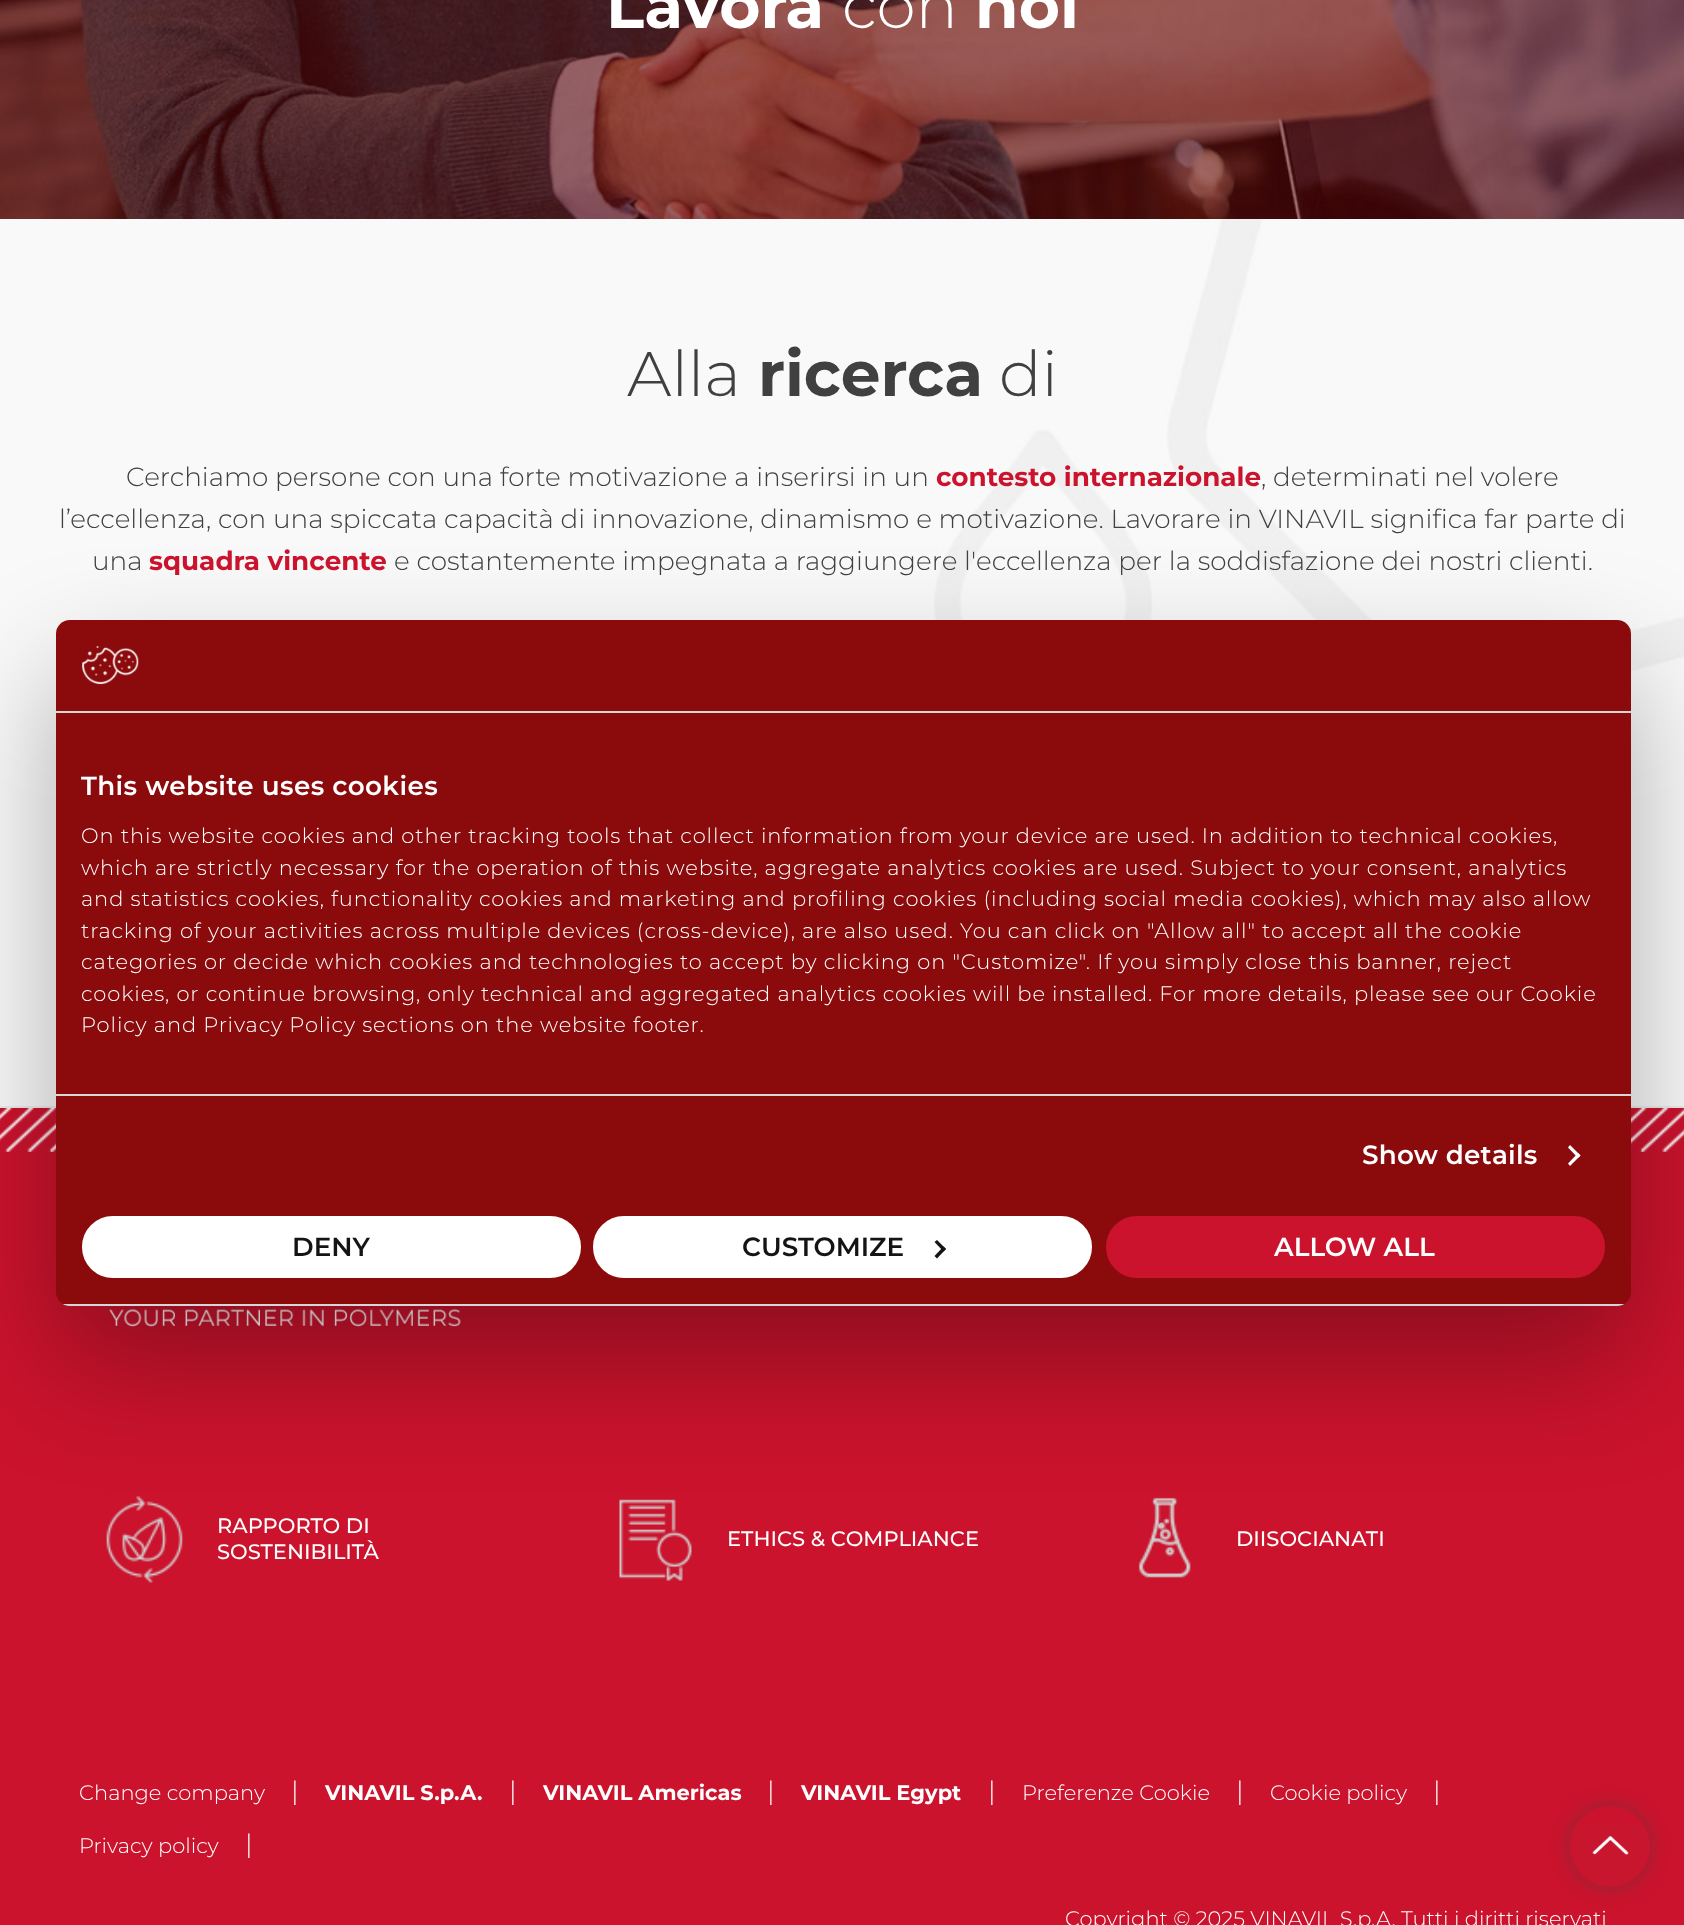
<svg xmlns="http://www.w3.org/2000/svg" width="1684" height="1925">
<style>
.a{font:bold 63px Montserrat;fill:#fff}
.b{font:300 63px Montserrat;fill:#fff}
.c{font:300 63px Montserrat;fill:#404040}
.d{font:bold 63px Montserrat;fill:#404040}
.e{font:300 26.25px Montserrat;fill:#404040}
.f{font:bold 26.25px Montserrat;fill:#cb132d}
.g{font:600 26.25px Montserrat;letter-spacing:0.4px;fill:#fff}
.h{font:300 21px Montserrat;letter-spacing:0.88px;fill:#fff}
.i{font:600 26.25px Montserrat;letter-spacing:0.25px;fill:#fff}
.j{font:600 26.25px Montserrat;fill:#141414}
.k{font:600 26.25px Montserrat;fill:#fff}
.l{font:500 21px Montserrat;fill:#fff}
.m{font:300 21px Montserrat;fill:#fff}
.n{font:300 26.25px Montserrat;fill:#fff}
.o{font:bold 21px Montserrat;fill:#fff}
</style>
<defs>
<clipPath id="clip1"><rect x="56" y="620" width="1575" height="686" rx="14"/></clipPath>
<clipPath id="clip2"><path d="M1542 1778h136v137h-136zm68 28c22 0 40 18 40 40v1c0 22-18 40-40 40c-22 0-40-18-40-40v-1c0-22 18-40 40-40z" clip-rule="evenodd"/></clipPath>
</defs>
<rect width="100%" height="100%" fill="#f9f9f9"/>
<image href="1.png" x="0" y="0" width="1684" height="219"/>
<image href="2.png" x="934" y="219" width="750" height="644"/>
<path fill="#ececec" d="M0 1106h1684v2H0z"/>
<path fill="#cb132d" d="M0 1151h1684v774H0z"/>
<image href="4.png" x="0" y="1108" width="1684" height="44"/>
<image href="5.png" x="109" y="1309" width="352" height="18"/>
<image href="6.png" x="106" y="1496" width="77" height="87"/>
<image href="7.png" x="619" y="1499" width="73" height="82"/>
<image href="8.png" x="1138" y="1497" width="53" height="81"/>
<rect fill="#0000004d" filter="blur(59.5px)" x="56" y="676" width="1575" height="686" rx="14"/>
<rect fill="#8b0b0d" x="56" y="620" width="1575" height="686" rx="14"/>
<path fill="#d6d6d6" d="M56 711h1575v2H56z"/>
<image href="3.png" x="82" y="645" width="57" height="40"/>
<path fill="#d6d6d6" d="M56 1094h1575v2H56z"/>
<path fill="#fff" d="M1570 1145l10.5 10.5l-2.5 2.5l-10-10.5z"/>
<path fill="#fff" d="M1578 1153l2.5 2.5l-10.5 10.5l-2-2.5z"/>
<g clip-path="url(#clip1)">
<path fill="#d6d6d6" d="M56 1304h1575v2H56z"/>
</g>
<rect fill="#fff" stroke="#fff" stroke-width="4" x="84" y="1218" width="495" height="58" rx="29"/>
<rect fill="#fff" stroke="#fff" stroke-width="4" x="595" y="1218" width="495" height="58" rx="29"/>
<path fill="#141414" d="M937 1240l9 9l-2.5 2.5l-9-9.5z"/>
<path fill="#141414" d="M943.5 1246.5l2.5 2.5l-9 9.5l-2.5-2.5z"/>
<rect fill="#cb132d" stroke="#cb132d" stroke-width="4" x="1108" y="1218" width="495" height="58" rx="29"/>
<g clip-path="url(#clip2)">
<rect fill="#4040407a" filter="blur(9px)" x="1570" y="1806" width="80" height="81" rx="40"/>
</g>
<image href="9.png" x="1573" y="1825" width="78" height="62"/>
<text class="a" x="606" y="28">Lavora</text>
<text class="b" x="842" y="28">con</text>
<text class="a" x="975" y="28">noi</text>
<text class="c" x="627" y="396">Alla</text>
<text class="d" x="758" y="396">ricerca</text>
<text class="c" x="999" y="396">di</text>
<text class="e" x="126" y="486">Cerchiamo persone con una forte motivazione a inserirsi in un</text>
<text class="f" x="936" y="486">contesto internazionale</text>
<text class="e" x="1261" y="486">, determinati nel volere</text>
<text class="e" x="59" y="528">l’eccellenza, con una spiccata capacità di innovazione, dinamismo e motivazione. Lavorare in VINAVIL significa far parte di</text>
<text class="e" x="92" y="570">una</text>
<text class="f" x="149" y="570">squadra vincente</text>
<text class="e" x="394" y="570">e costantemente impegnata a raggiungere l'eccellenza per la soddisfazione dei nostri clienti.</text>
<text class="g" x="81" y="795">This website uses cookies</text>
<text class="h" x="81" y="843">On this website cookies and other tracking tools that collect information from your device are used. In addition to technical cookies,</text>
<text class="h" x="81" y="875">which are strictly necessary for the operation of this website, aggregate analytics cookies are used. Subject to your consent, analytics</text>
<text class="h" x="81" y="906">and statistics cookies, functionality cookies and marketing and profiling cookies (including social media cookies), which may also allow</text>
<text class="h" x="81" y="938">tracking of your activities across multiple devices (cross-device), are also used. You can click on "Allow all" to accept all the cookie</text>
<text class="h" x="81" y="969">categories or decide which cookies and technologies to accept by clicking on "Customize". If you simply close this banner, reject</text>
<text class="h" x="81" y="1001">cookies, or continue browsing, only technical and aggregated analytics cookies will be installed. For more details, please see our Cookie</text>
<text class="h" x="81" y="1032">Policy and Privacy Policy sections on the website footer.</text>
<text class="i" x="1362" y="1164">Show details</text>
<text class="j" x="292" y="1256">DENY</text>
<text class="j" x="742" y="1256">CUSTOMIZE</text>
<text class="k" x="1274" y="1256">ALLOW ALL</text>
<text class="l" x="217" y="1533">RAPPORTO DI</text>
<text class="l" x="217" y="1559">SOSTENIBILITÀ</text>
<text class="l" x="727" y="1546">ETHICS &amp; COMPLIANCE</text>
<text class="l" x="1236" y="1546">DIISOCIANATI</text>
<text class="m" x="79" y="1800">Change company</text>
<text class="n" x="291" y="1800">|</text>
<text class="o" x="325" y="1800">VINAVIL S.p.A.</text>
<text class="n" x="509" y="1800">|</text>
<text class="o" x="543" y="1800">VINAVIL Americas</text>
<text class="n" x="767" y="1800">|</text>
<text class="o" x="801" y="1800">VINAVIL Egypt</text>
<text class="n" x="988" y="1800">|</text>
<text class="m" x="1022" y="1800">Preferenze Cookie</text>
<text class="n" x="1236" y="1800">|</text>
<text class="m" x="1270" y="1800">Cookie policy</text>
<text class="n" x="1433" y="1800">|</text>
<text class="m" x="79" y="1853">Privacy policy</text>
<text class="n" x="245" y="1853">|</text>
<text class="m" x="1065" y="1926">Copyright © 2025 VINAVIL S.p.A. Tutti i diritti riservati</text>
</svg>
